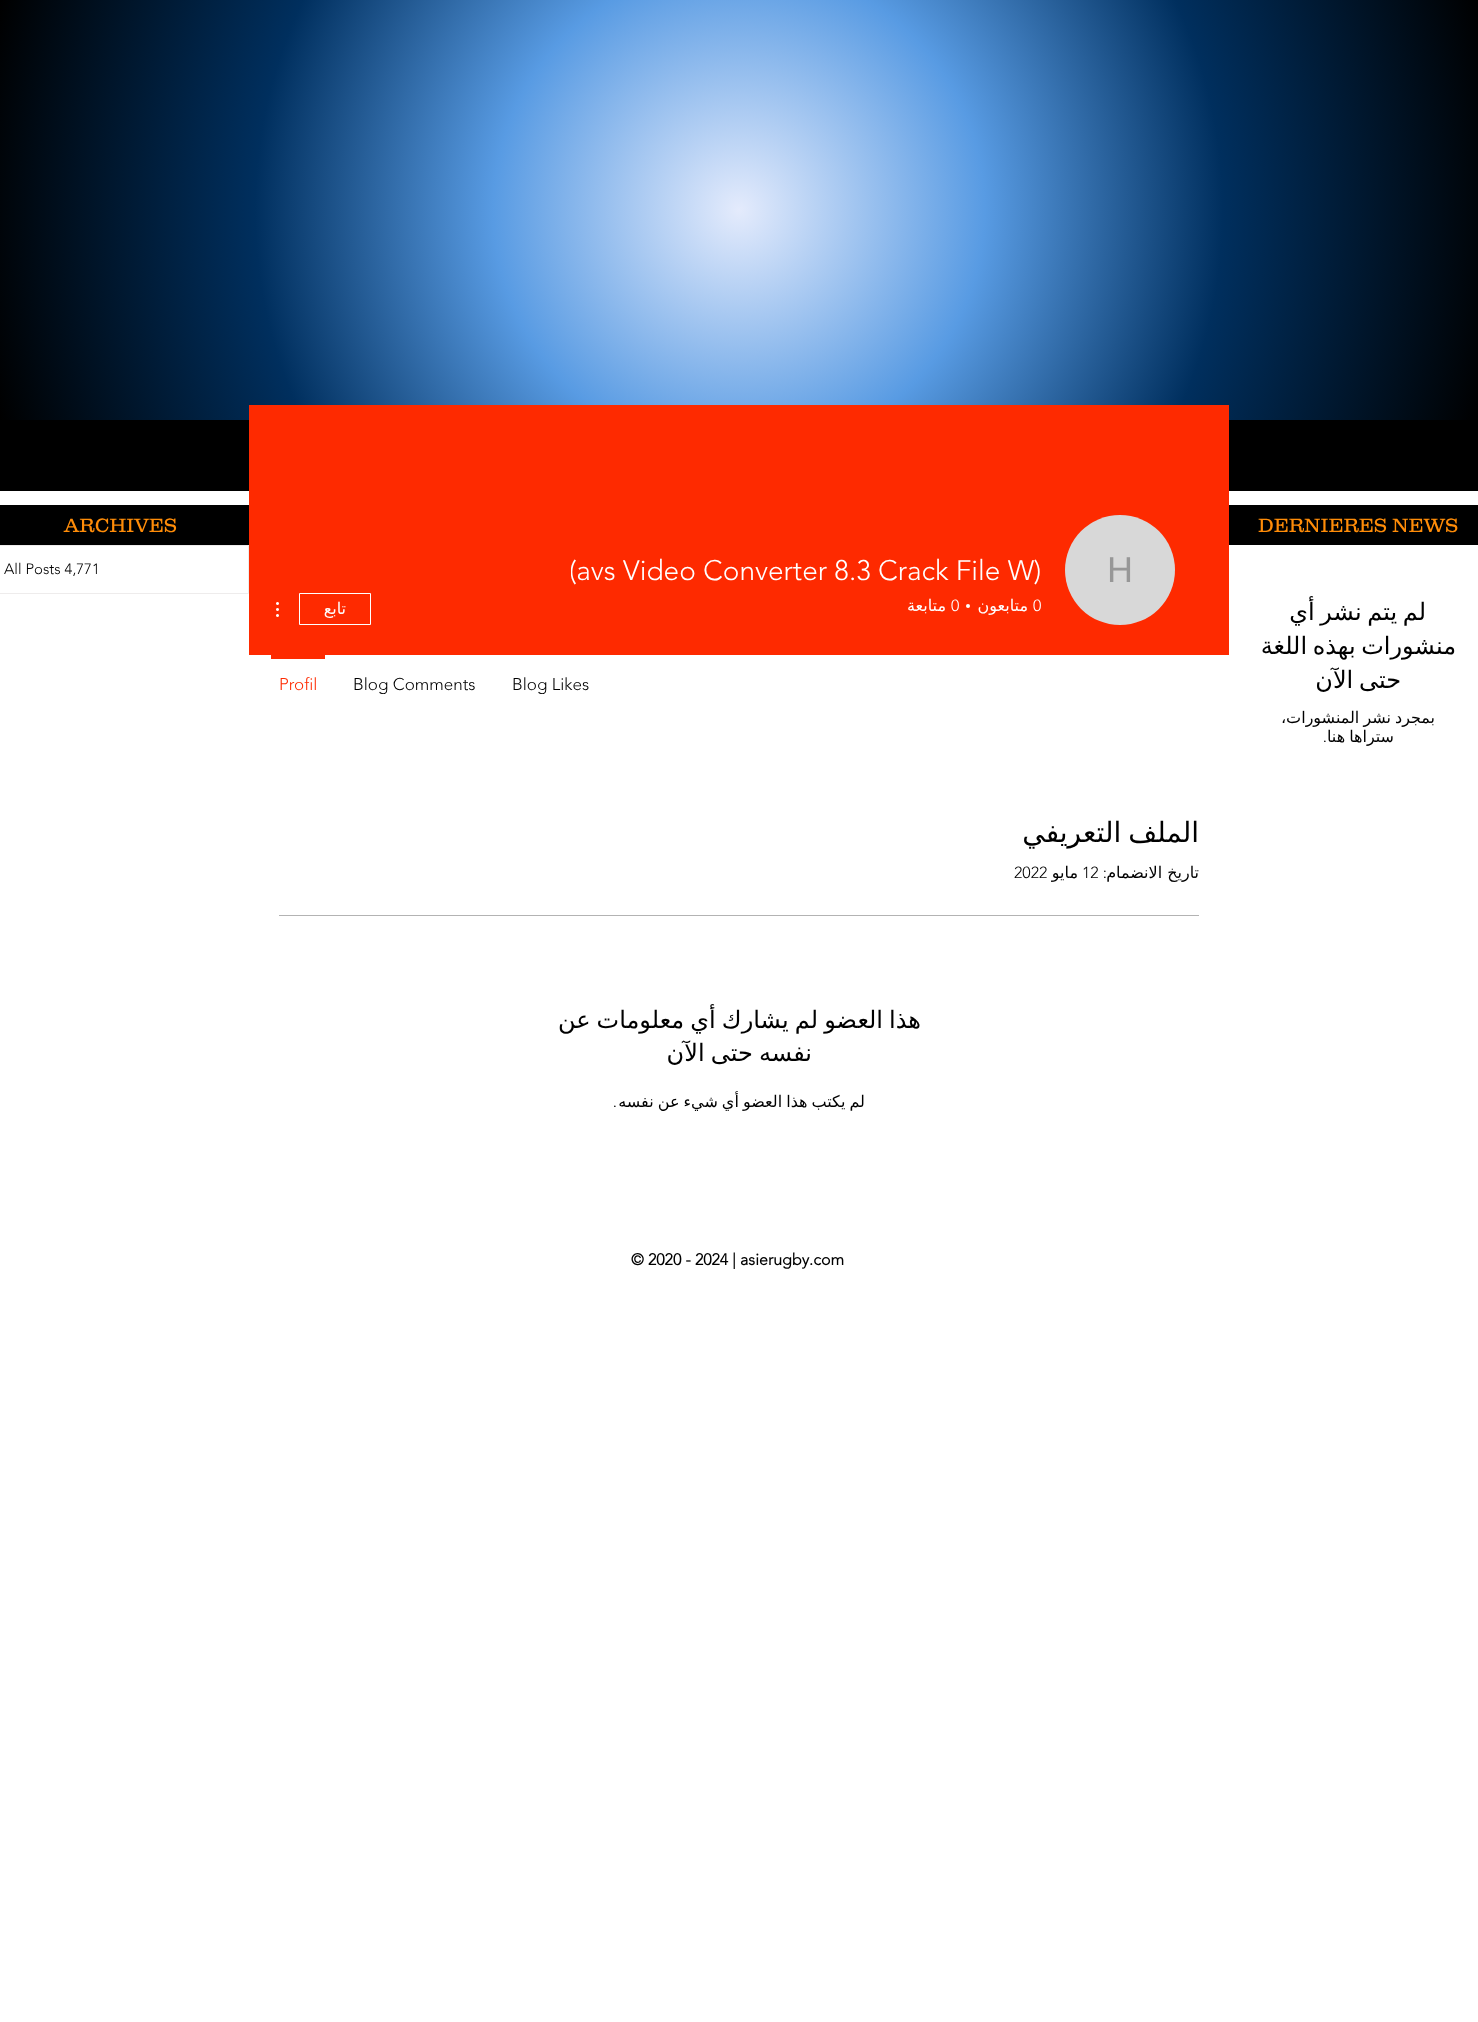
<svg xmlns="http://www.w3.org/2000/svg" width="1478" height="2022">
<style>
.a{font:300 20px 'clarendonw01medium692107';fill:#ff8c08}
.b{font:36px Liberation Sans;fill:#979797}
.c{font:300 28px 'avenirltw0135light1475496';fill:#fff}
.d{font:300 16px 'avenirltw0135light1475496';fill:#fff}
.e{font:16px DejaVu Sans;direction:rtl;fill:#fff}
.f{font:300 17px 'avenirltw0135light1475496';fill:#000}
.g{font:300 17px 'avenirltw0135light1475496';fill:#fe2a00}
.h{font:300 15px 'avenirltw0135light1475496';fill:#000}
.i{font:24px DejaVu Sans;direction:rtl;fill:#000}
.j{font:16px DejaVu Sans;direction:rtl;fill:#000}
.k{font:300 16px 'avenirltw0135light1475496';direction:rtl;fill:#000}
.l{font:28px DejaVu Sans;direction:rtl;fill:#000}
.m{font:300 16px 'avenirltw0135light1475496';fill:#000}
.n{font:bold 16px 'avenirltw0135light1475496';fill:#000}
</style>
<defs>
<radialGradient id="g1" gradientUnits="userSpaceOnUse" cx="739" cy="210" r="768"><stop offset="0" stop-color="#e4ebfc"/><stop offset="0.32" stop-color="#589be3"/><stop offset="0.63" stop-color="#002f5e"/><stop offset="1" stop-color="#000"/></radialGradient>
<clipPath id="clip1"><path d="M571 551h470v40H571z"/></clipPath>
</defs>
<rect width="100%" height="100%" fill="#fff"/>
<path fill="url(#g1)" d="M0 0h1478v420H0z"/>
<path fill="#000" d="M0 420h1478v71H0z"/>
<path fill="#000" d="M1229 505h249v40H1229z"/>
<path fill="#000" d="M0 505h249v40H0z"/>
<path fill="#fe2a00" d="M249 405h980v250H249z"/>
<circle fill="#d8d8d8" cx="1120" cy="570" r="55"/>
<circle fill="#fff" cx="968" cy="606" r="2"/>
<path fill="none" stroke="#fff" d="M299.5 593.5h71v31H299.5z"/>
<image href="1.png" x="276" y="602" width="3" height="15"/>
<path fill="#fe2a00" d="M271 655h54v4H271z"/>
<path fill="none" stroke="#eeecec" d="M-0.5 545.5h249v48H-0.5z"/>
<path fill="#b3b3b3" d="M279 915h920v1H279z"/>
<text class="a" x="1258" y="532">DERNIERES NEWS</text>
<text class="a" x="64" y="532">ARCHIVES</text>
<text class="b" x="1107" y="582">H</text>
<g clip-path="url(#clip1)">
<text class="c" x="569" y="580">(avs Video Converter 8.3 Crack File W)</text>
</g>
<text class="d" x="1033" y="611">0</text>
<text class="e" x="1028" y="611">متابعون</text>
<text class="d" x="951" y="611">0</text>
<text class="e" x="946" y="611">متابعة</text>
<text class="e" x="346" y="614">تابع</text>
<text class="f" x="512" y="690">Blog Likes</text>
<text class="f" x="353" y="690">Blog Comments</text>
<text class="g" x="279" y="690">Profil</text>
<text class="h" x="4" y="574">All Posts 4,771</text>
<text class="i" x="1426" y="620" word-spacing="-2">لم يتم نشر أي</text>
<text class="i" x="1456" y="654" word-spacing="-2">منشورات بهذه اللغة</text>
<text class="i" x="1401" y="688" word-spacing="-2">حتى الآن</text>
<text class="j" x="1435" y="723" word-spacing="-1">بمجرد نشر المنشورات،</text>
<text class="j" x="1394" y="742" word-spacing="-1">ستراها هنا</text>
<text class="k" x="1327" y="742">.</text>
<text class="l" x="1199" y="842" word-spacing="-2">الملف التعريفي</text>
<text class="j" x="1199" y="878">تاريخ الانضمام</text>
<text class="k" x="1107" y="878">:</text>
<text class="m" x="1082" y="878">12</text>
<text class="j" x="1078" y="878">مايو</text>
<text class="m" x="1014" y="878">2022</text>
<text class="i" x="921" y="1028" word-spacing="-1.5">هذا العضو لم يشارك أي معلومات عن</text>
<text class="i" x="812" y="1061" word-spacing="-1.5">نفسه حتى الآن</text>
<text class="j" x="865" y="1107" word-spacing="-1">لم يكتب هذا العضو أي شيء عن نفسه</text>
<text class="k" x="617" y="1107">.</text>
<text class="n" x="631" y="1265">© 2020 - 2024 | asierugby.com</text>
</svg>
